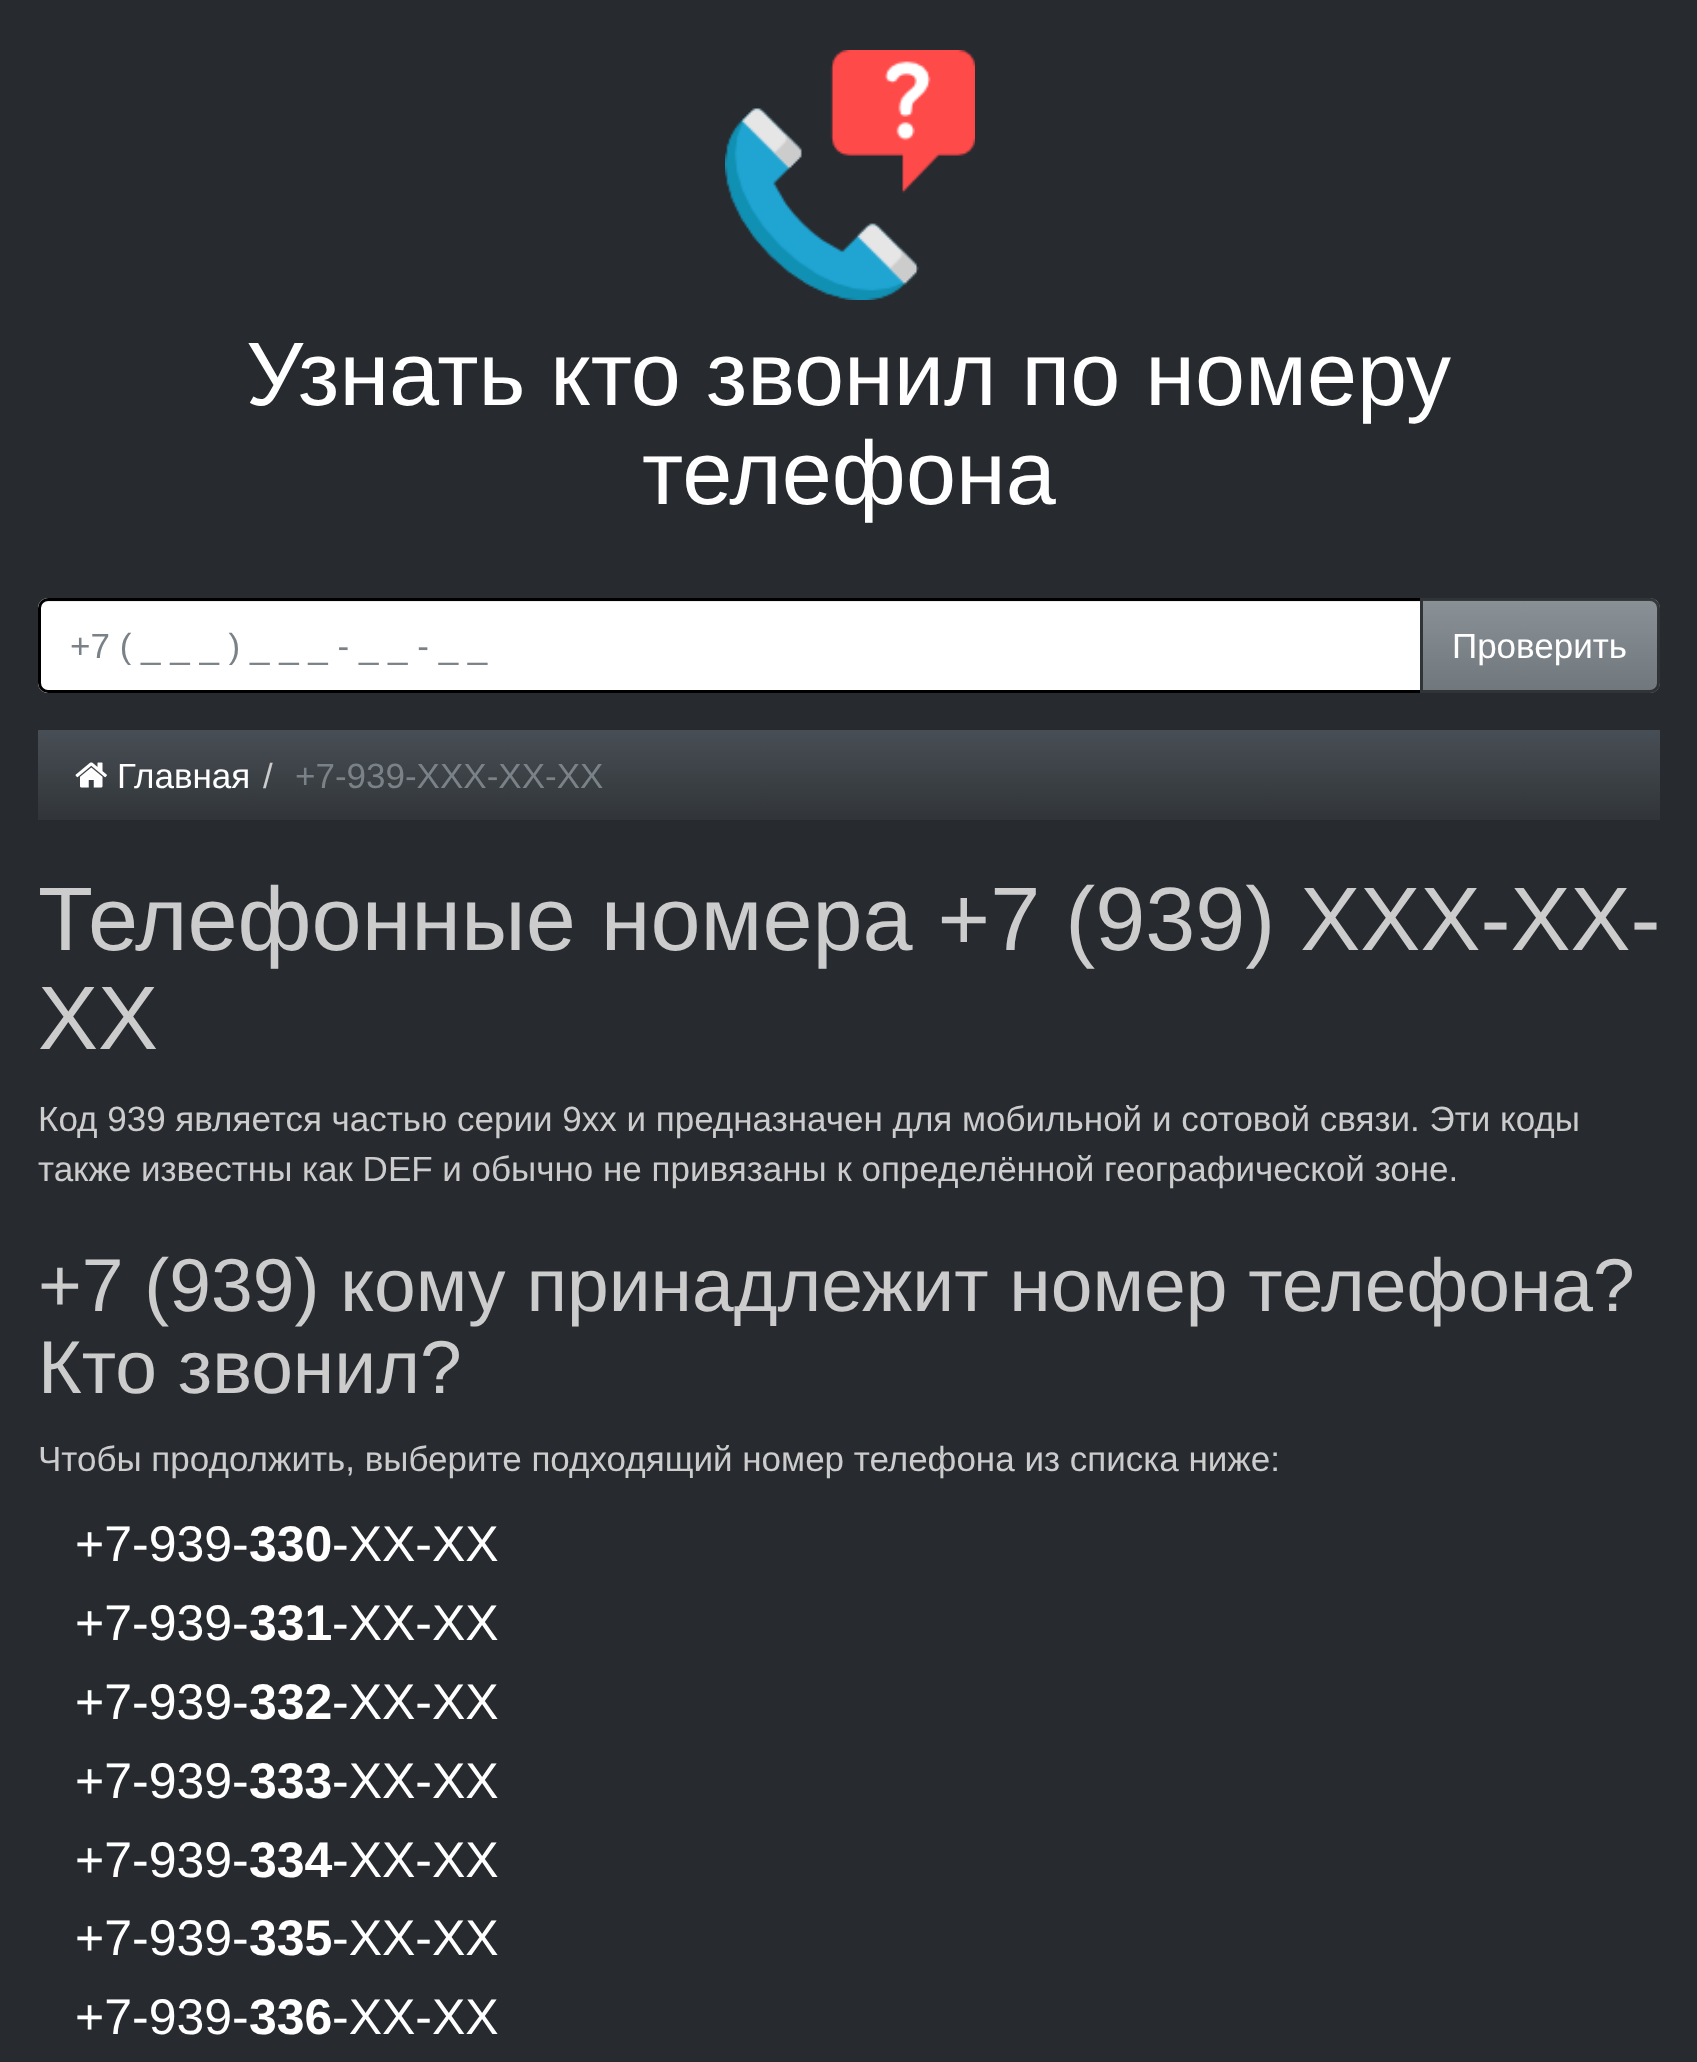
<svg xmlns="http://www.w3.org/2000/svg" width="1697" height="2062">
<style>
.a{font:90px Liberation Sans;fill:#fff}
.b{font:35px Liberation Sans;fill:#7a8288}
.c{font:35px Liberation Sans;fill:#fff}
.d{font:35px Liberation Sans;fill:#ccc}
.e{font:90px Liberation Sans;fill:#ccc}
.f{font:75px Liberation Sans;fill:#ccc}
.g{font:50px Liberation Sans;fill:#fff}
.h{font:bold 50px Liberation Sans;fill:#fff}
</style>
<defs>
<clipPath id="clip1"><path d="M1420 598h230c5.5 0 10 4.5 10 10v75c0 5.5-4.5 10-10 10h-230z"/></clipPath>
<linearGradient id="g1" gradientUnits="userSpaceOnUse" x1="1540" y1="600" x2="1540" y2="690"><stop offset="0" stop-color="#8a9196"/><stop offset="0.6" stop-color="#7a8288"/><stop offset="1" stop-color="#70787d"/></linearGradient>
<linearGradient id="g2" gradientUnits="userSpaceOnUse" x1="849" y1="730" x2="849" y2="820"><stop offset="0" stop-color="#484e55"/><stop offset="0.6" stop-color="#3a3f44"/><stop offset="1" stop-color="#313539"/></linearGradient>
<clipPath id="clip2"><path d="M70 625h1320v40H70z"/></clipPath>
</defs>
<rect width="100%" height="100%" fill="#272b30"/>
<image href="1.png" x="725" y="50" width="250" height="250"/>
<path fill="#fff" d="M48 598h1375v95h-1375c-5.5 0-10-4.5-10-10v-75c0-5.5 4.5-10 10-10z"/>
<path fill="#ececec" d="M48 602h1372v-2h-1372c-4 0-8 4-8 8v2c0-4 3-8 8-8z"/>
<path fill="none" stroke="#000" stroke-width="3" d="M48 599.5h1373.5v92h-1373.5c-4.5 0-8.5-4-8.5-8.5v-75c0-4.5 4-8.5 8.5-8.5z"/>
<path fill="#7a8288" d="M1420 598h230c5.5 0 10 4.5 10 10v75c0 5.5-4.5 10-10 10h-230z"/>
<g clip-path="url(#clip1)">
<path fill="url(#g1)" d="M1423 600h235v90H1423z"/>
</g>
<path fill="none" stroke="#00000099" stroke-width="3" d="M1421.5 599.5h228.5c4.5 0 8.5 4 8.5 8.5v75c0 4.5-4 8.5-8.5 8.5h-228.5z"/>
<path fill="url(#g2)" d="M38 730h1622v90H38z"/>
<image href="2.png" x="75" y="762" width="32" height="26"/>
<text class="a" x="246" y="405">Узнать кто звонил по номеру</text>
<text class="a" x="642" y="504">телефона</text>
<g clip-path="url(#clip2)">
<text class="b" x="70" y="658">+7 ( _ _ _ ) _ _ _ - _ _ - _ _</text>
</g>
<text class="c" x="1452" y="658">Проверить</text>
<text class="c" x="117" y="788">Главная</text>
<text class="d" x="263" y="788">/</text>
<text class="b" x="295" y="788">+7-939-XXX-XX-XX</text>
<text class="e" x="38" y="950">Телефонные номера +7 (939) XXX-XX-</text>
<text class="e" x="38" y="1049">XX</text>
<text class="d" x="38" y="1131">Код 939 является частью серии 9xx и предназначен для мобильной и сотовой связи. Эти коды</text>
<text class="d" x="38" y="1181">также известны как DEF и обычно не привязаны к определённой географической зоне.</text>
<text class="f" x="38" y="1311">+7 (939) кому принадлежит номер телефона?</text>
<text class="f" x="38" y="1393">Кто звонил?</text>
<text class="d" x="38" y="1471">Чтобы продолжить, выберите подходящий номер телефона из списка ниже:</text>
<text class="g" x="75" y="1561">+7-939-</text>
<text class="h" x="249" y="1561">330</text>
<text class="g" x="332" y="1561">-XX-XX</text>
<text class="g" x="75" y="1640">+7-939-</text>
<text class="h" x="249" y="1640">331</text>
<text class="g" x="332" y="1640">-XX-XX</text>
<text class="g" x="75" y="1719">+7-939-</text>
<text class="h" x="249" y="1719">332</text>
<text class="g" x="332" y="1719">-XX-XX</text>
<text class="g" x="75" y="1798">+7-939-</text>
<text class="h" x="249" y="1798">333</text>
<text class="g" x="332" y="1798">-XX-XX</text>
<text class="g" x="75" y="1877">+7-939-</text>
<text class="h" x="249" y="1877">334</text>
<text class="g" x="332" y="1877">-XX-XX</text>
<text class="g" x="75" y="1955">+7-939-</text>
<text class="h" x="249" y="1955">335</text>
<text class="g" x="332" y="1955">-XX-XX</text>
<text class="g" x="75" y="2034">+7-939-</text>
<text class="h" x="249" y="2034">336</text>
<text class="g" x="332" y="2034">-XX-XX</text>
</svg>
